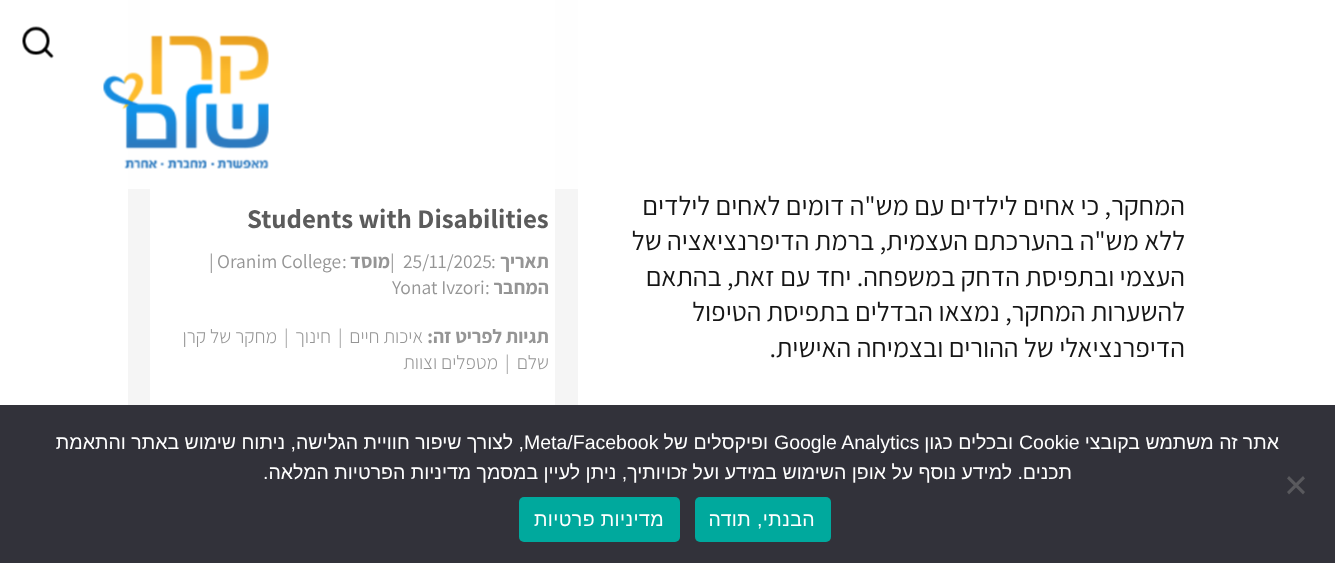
<svg xmlns="http://www.w3.org/2000/svg" width="1335" height="563">
<style>
.a{font:27px Assistant;direction:rtl;fill:#161616}
.b{font:bold 27px Assistant;fill:#5b5b5b}
.c{font:bold 19.5px Assistant;direction:rtl;fill:#959595}
.d{font:19.5px Assistant;fill:#959595}
.e{font:300 19.5px Assistant;direction:rtl;fill:#959595}
.f{font:300 19.5px Assistant;fill:#959595}
.g{font:19.5px Liberation Sans;direction:rtl;fill:#fff}
.h{font:19.5px Liberation Sans;fill:#fff}
.i{font:19.5px Liberation Sans;letter-spacing:0.4px;direction:rtl;fill:#fff}
</style>
<rect width="100%" height="100%" fill="#fff"/>
<path fill="#f5f5f5" d="M128 0h450v405H128z"/>
<path fill="#fff" d="M150 0h405v405H150z"/>
<path fill="#ffffffe6" d="M128 0h450v189H128z"/>
<image href="1.png" x="103" y="35" width="166" height="134"/>
<image href="2.png" x="22" y="26" width="32" height="33"/>
<path fill="#32323a" d="M0 405h1335v158H0z"/>
<path fill="#59595d" d="M1303 476l2 2.5l-16 16l-2-2.5z"/>
<path fill="#59595d" d="M1287 478.5l2-2.5l16 16l-2 2.5z"/>
<rect fill="#00a99d" x="695" y="497" width="136" height="45" rx="5"/>
<rect fill="#00a99d" x="519" y="497" width="161" height="45" rx="5"/>
<text class="a" x="1185" y="215">המחקר, כי אחים לילדים עם מש"ה דומים לאחים לילדים</text>
<text class="a" x="1185" y="250">ללא מש"ה בהערכתם העצמית, ברמת הדיפרנציאציה של</text>
<text class="a" x="1185" y="286">העצמי ובתפיסת הדחק במשפחה. יחד עם זאת, בהתאם</text>
<text class="a" x="1185" y="321">להשערות המחקר, נמצאו הבדלים בתפיסת הטיפול</text>
<text class="a" x="1185" y="357">הדיפרנציאלי של ההורים ובצמיחה האישית.</text>
<text class="b" x="247" y="228">Students with Disabilities</text>
<text class="c" x="549" y="268">תאריך</text>
<text class="d" x="491" y="268">:</text>
<text class="d" x="403" y="268">25/11/2025</text>
<text class="d" x="390" y="268">|</text>
<text class="c" x="390" y="268">מוסד</text>
<text class="d" x="342" y="268">:</text>
<text class="d" x="217" y="268">Oranim College</text>
<text class="d" x="209" y="268">|</text>
<text class="c" x="549" y="294">המחבר</text>
<text class="d" x="485" y="294">:</text>
<text class="d" x="392" y="294">Yonat Ivzori</text>
<text class="c" x="549" y="343">תגיות לפריט זה:</text>
<text class="e" x="423" y="343">איכות חיים</text>
<text class="f" x="338" y="343">|</text>
<text class="e" x="331" y="343">חינוך</text>
<text class="f" x="284" y="343">|</text>
<text class="e" x="277" y="343">מחקר של קרן</text>
<text class="e" x="549" y="369">שלם</text>
<text class="f" x="505" y="369">|</text>
<text class="e" x="498" y="369">מטפלים וצוות</text>
<text class="g" x="1279" y="449">אתר זה משתמש בקובצי</text>
<text class="h" x="1019" y="449">Cookie</text>
<text class="g" x="1013" y="449">ובכלים כגון</text>
<text class="h" x="774" y="449">Google Analytics</text>
<text class="g" x="768" y="449">ופיקסלים של</text>
<text class="h" x="524" y="449">Meta/Facebook</text>
<text class="g" x="524" y="449">, לצורך שיפור חוויית הגלישה, ניתוח שימוש באתר והתאמת</text>
<text class="g" x="1072" y="479">תכנים. למידע נוסף על אופן השימוש במידע ועל זכויותיך, ניתן לעיין במסמך מדיניות הפרטיות המלאה.</text>
<text class="i" x="815" y="526">הבנתי, תודה</text>
<text class="i" x="664" y="526">מדיניות פרטיות</text>
</svg>
